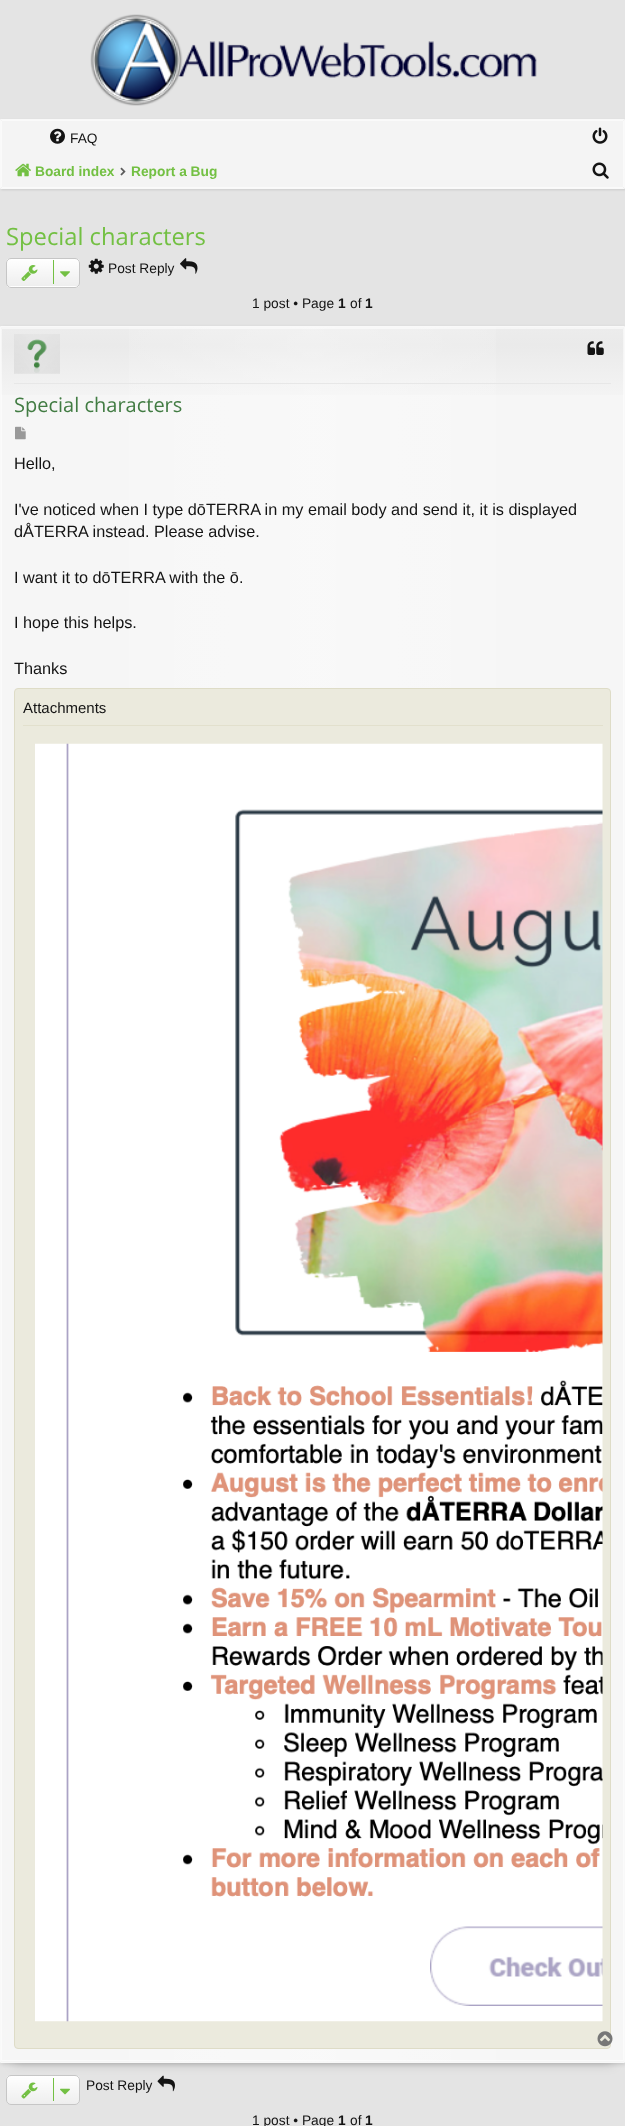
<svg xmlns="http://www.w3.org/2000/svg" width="625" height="2126">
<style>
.a{font:13.75px Liberation Sans;fill:#141414}
.b{font:bold 13.75px Liberation Sans;fill:#73c043}
.c{font:23.75px Open Sans;fill:#73c043}
.d{font:bold 13.75px Liberation Sans;fill:#141414}
.e{font:20px Open Sans;fill:#427c43}
.f{font:16.25px Liberation Sans;fill:#141414}
.g{font:15px Liberation Sans;fill:#141414}
</style>
<defs>
<clipPath id="clip1"><rect x="6" y="258" width="74" height="30" rx="5"/></clipPath>
<linearGradient id="g1" gradientUnits="userSpaceOnUse" x1="43" y1="259" x2="43" y2="286"><stop offset="0" stop-color="#fff"/><stop offset="1" stop-color="#fff" stop-opacity="0"/></linearGradient>
<linearGradient id="g2" gradientUnits="userSpaceOnUse" x1="43" y1="286" x2="43" y2="314"><stop offset="0" stop-color="#fff"/><stop offset="1" stop-color="#fff" stop-opacity="0"/></linearGradient>
<linearGradient id="g3" gradientUnits="userSpaceOnUse" x1="312" y1="328" x2="313" y2="2061"><stop offset="0" stop-color="#ececec"/><stop offset="0.01" stop-color="#eaeaea"/><stop offset="0.04" stop-color="#f4f4f4"/></linearGradient>
<linearGradient id="g4" gradientUnits="userSpaceOnUse" x1="1.2" y1="1194" x2="624" y2="1194"><stop offset="0" stop-color="#fff" stop-opacity="0"/><stop offset="0.5" stop-color="#fff" stop-opacity="0.3"/><stop offset="1" stop-color="#fff" stop-opacity="0"/></linearGradient>
<clipPath id="clip2"><rect x="6" y="2075" width="74" height="30" rx="5"/></clipPath>
<linearGradient id="g5" gradientUnits="userSpaceOnUse" x1="43" y1="2076" x2="43" y2="2104"><stop offset="0" stop-color="#fff"/><stop offset="1" stop-color="#fff" stop-opacity="0"/></linearGradient>
</defs>
<rect width="100%" height="100%" fill="#e4e4e4"/>
<image href="1.png" x="90" y="14" width="447" height="92"/>
<path fill="#0000001a" filter="blur(1px)" d="M1 120h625v70H1z"/>
<path fill="#f4f4f4" stroke="#fafafa" d="M1.5 120.5h622v67H1.5z"/>
<path fill="none" stroke="#f9f9f9" d="M0.5 119.5h624v69H0.5z"/>
<image href="2.png" x="50" y="128" width="15" height="16"/>
<image href="3.png" x="592" y="127" width="16" height="17"/>
<image href="4.png" x="15" y="163" width="16" height="14"/>
<image href="5.png" x="120" y="167" width="6" height="9"/>
<image href="6.png" x="592" y="162" width="17" height="17"/>
<rect fill="#eee" x="6" y="258" width="74" height="30" rx="5"/>
<g clip-path="url(#clip1)">
<path fill="url(#g1)" d="M6 259h74v26H6z"/>
<path fill="url(#g2)" d="M6 286h74v2H6z"/>
</g>
<rect fill="none" stroke="#c6c6c6" x="6.5" y="258.5" width="73" height="29" rx="4.5"/>
<image href="7.png" x="21" y="265" width="17" height="16"/>
<path fill="#73c043" d="M53 260h1v24H53z"/>
<image href="8.png" x="60" y="271" width="10" height="6"/>
<image href="9.png" x="88" y="258" width="16" height="16"/>
<image href="10.png" x="180" y="258" width="18" height="16"/>
<image href="18.png" x="157" y="2075" width="18" height="17"/>
<path fill="#00000033" filter="blur(6px)" d="M13 351h600v1712H13z"/>
<path fill="#00000026" filter="blur(2px)" d="M1 328h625v1736H1z"/>
<path fill="#f6f6f6" d="M1 327h623v1735H1z"/>
<path fill="url(#g3)" d="M1 328h623v67H1z"/>
<path fill="url(#g4)" d="M129 327h367v1735H129z"/>
<path fill="none" stroke="#ffffff80" d="M1.5 328.5h622v1732H1.5z"/>
<path fill="none" stroke="#f9f9f9" d="M0.5 326.5h624v1736H0.5z"/>
<path fill="#e7e7e7" d="M14 383h597v1H14z"/>
<image href="11.png" x="14" y="334" width="46" height="40"/>
<image href="12.png" x="587" y="341" width="17" height="14"/>
<image href="13.png" x="15" y="426" width="11" height="14"/>
<rect fill="#ebeadd" stroke="#dedcc7" x="14.5" y="688.5" width="596" height="1360" rx="3.5"/>
<path fill="#e2e0cd" d="M23 725h580v1H23z"/>
<image href="14.png" x="35" y="743" width="568" height="1279"/>
<image href="15.png" x="597" y="2031" width="16" height="16"/>
<rect fill="#eee" x="6" y="2075" width="74" height="30" rx="5"/>
<g clip-path="url(#clip2)">
<path fill="url(#g5)" d="M6 2076h74v27H6z"/>
</g>
<rect fill="none" stroke="#c6c6c6" x="6.5" y="2075.5" width="73" height="29" rx="4.5"/>
<image href="16.png" x="21" y="2082" width="17" height="17"/>
<path fill="#73c043" d="M53 2078h1v23H53z"/>
<image href="17.png" x="60" y="2088" width="10" height="7"/>
<text class="a" x="70" y="143">FAQ</text>
<text class="b" x="35" y="176">Board index</text>
<text class="b" x="131" y="176">Report a Bug</text>
<text class="c" x="6" y="245">Special characters</text>
<text class="a" x="108" y="273">Post Reply</text>
<text class="a" x="252" y="308">1 post • Page</text>
<text class="d" x="338" y="308">1</text>
<text class="a" x="350" y="308">of</text>
<text class="d" x="365" y="308">1</text>
<text class="e" x="14" y="412">Special characters</text>
<text class="f" x="14" y="469">Hello,</text>
<text class="f" x="14" y="515">I've noticed when I type dōTERRA in my email body and send it, it is displayed</text>
<text class="f" x="14" y="537">dÅTERRA instead. Please advise.</text>
<text class="f" x="14" y="583">I want it to dōTERRA with the ō.</text>
<text class="f" x="14" y="628">I hope this helps.</text>
<text class="f" x="14" y="674">Thanks</text>
<text class="g" x="23" y="713">Attachments</text>
<text class="a" x="86" y="2090">Post Reply</text>
<text class="a" x="252" y="2125">1 post • Page</text>
<text class="d" x="338" y="2125">1</text>
<text class="a" x="350" y="2125">of</text>
<text class="d" x="365" y="2125">1</text>
</svg>
